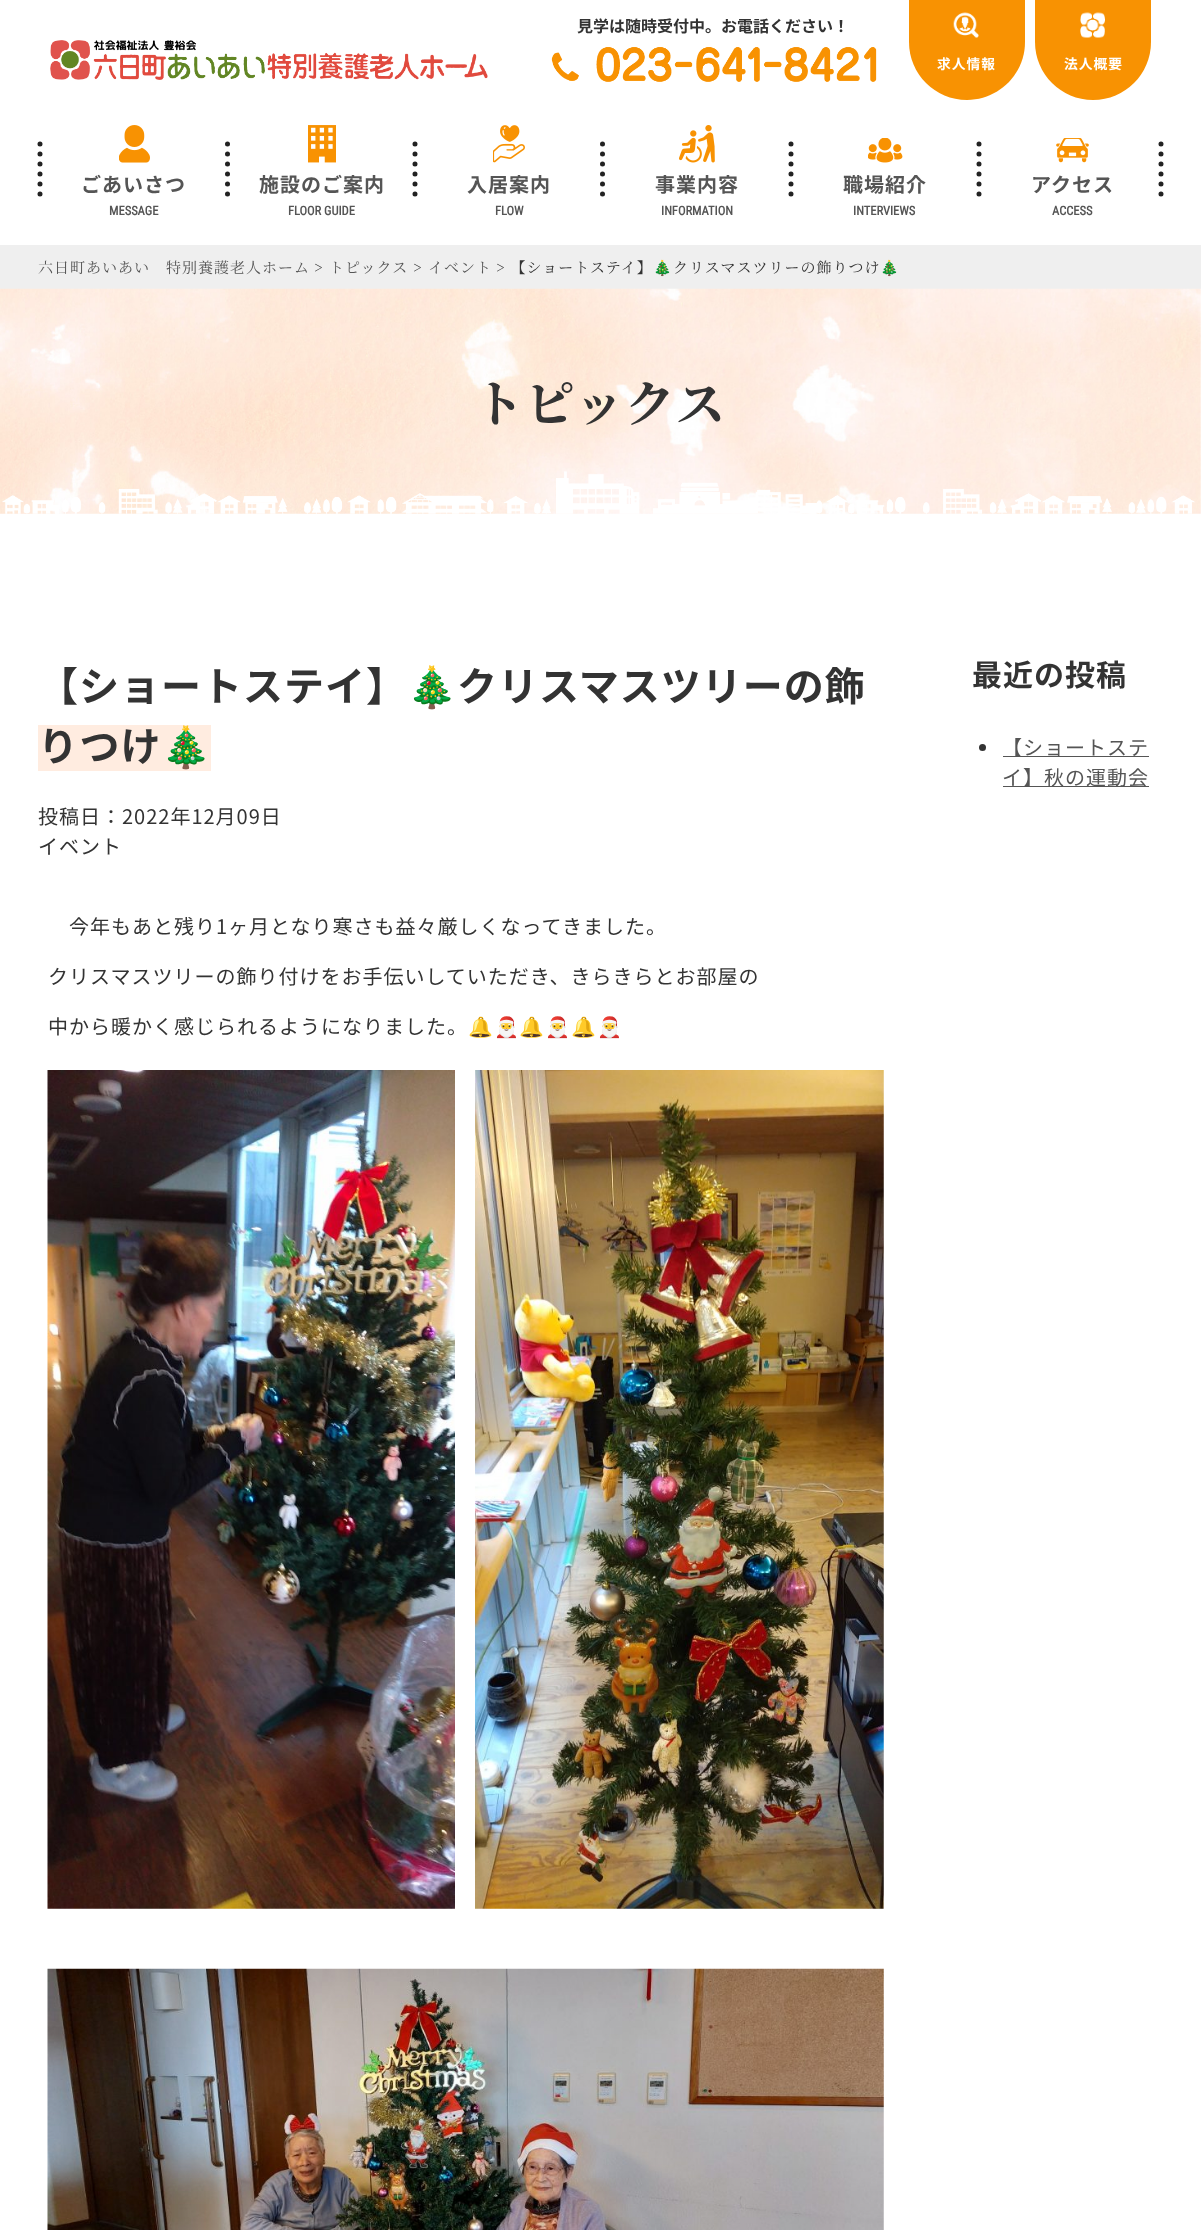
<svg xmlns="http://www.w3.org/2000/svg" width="1201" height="2230">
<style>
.a{font:bold 16px Noto Sans JP;fill:#333}
.b{font:bold 13.75px Noto Sans JP;letter-spacing:1px;fill:#fff}
.c{font:bold 20px Noto Sans JP;letter-spacing:1px;fill:#555}
.d{font:bold 12.5px Roboto Condensed;fill:#555}
.e{font:15px Noto Serif JP;letter-spacing:1px;fill:#555}
.f{font:15px Noto Serif JP;letter-spacing:1px;fill:#333}
.g{font:15px Noto Color Emoji;letter-spacing:1px;fill:#333}
.h{font:bold 50px Noto Serif JP;letter-spacing:1px;fill:#333}
.i{font:bold 40px Noto Sans JP;letter-spacing:1px;fill:#333}
.j{font:bold 40px Noto Color Emoji;letter-spacing:1px;fill:#333}
.k{font:20px Noto Sans JP;letter-spacing:1px;fill:#333}
.l{font:20px Noto Color Emoji;letter-spacing:1px;fill:#333}
.m{font:bold 30px Noto Sans JP;letter-spacing:1px;fill:#333}
.n{font:20px Noto Sans JP;letter-spacing:1px;fill:#555}
</style>
<rect width="100%" height="100%" fill="#fff"/>
<image href="1.png" x="50" y="40" width="438" height="40"/>
<image href="2.png" x="551" y="47" width="326" height="35"/>
<path fill="#f89202" d="M909 0h116v42c0 32-26 58-58 58c-32 0-58-26-58-58z"/>
<image href="3.png" x="953" y="12" width="26" height="26"/>
<path fill="#f89202" d="M1035 0h116v42c0 32-26 58-58 58c-32 0-58-26-58-58z"/>
<image href="4.png" x="1080" y="12" width="25" height="26"/>
<path fill="none" stroke="#222" stroke-width="5" stroke-linecap="round" stroke-dasharray="0 10" d="M40 144v57"/>
<image href="5.png" x="119" y="125" width="31" height="38"/>
<path fill="none" stroke="#222" stroke-width="5" stroke-linecap="round" stroke-dasharray="0 10" d="M227.5 144v57"/>
<image href="6.png" x="308" y="125" width="28" height="38"/>
<path fill="none" stroke="#222" stroke-width="5" stroke-linecap="round" stroke-dasharray="0 10" d="M415 144v57"/>
<image href="7.png" x="493" y="125" width="32" height="38"/>
<path fill="none" stroke="#222" stroke-width="5" stroke-linecap="round" stroke-dasharray="0 10" d="M602.5 144v57"/>
<image href="8.png" x="679" y="125" width="36" height="38"/>
<path fill="none" stroke="#222" stroke-width="5" stroke-linecap="round" stroke-dasharray="0 10" d="M791 144v57"/>
<image href="9.png" x="868" y="138" width="35" height="25"/>
<path fill="none" stroke="#222" stroke-width="5" stroke-linecap="round" stroke-dasharray="0 10" d="M979 144v57"/>
<image href="10.png" x="1056" y="138" width="33" height="25"/>
<path fill="none" stroke="#222" stroke-width="5" stroke-linecap="round" stroke-dasharray="0 10" d="M1161 144v57"/>
<path fill="#efefef" d="M0 245h1201v44H0z"/>
<image href="11.png" x="0" y="288" width="1201" height="226"/>
<path fill="#ffece0" d="M38 725h173v46H38z"/>
<image href="12.png" x="47" y="1070" width="408" height="839"/>
<image href="13.png" x="475" y="1070" width="409" height="839"/>
<image href="14.png" x="47" y="1968" width="837" height="262"/>
<circle fill="#333" cx="982.5" cy="747.5" r="3.5"/>
<path fill="#555" d="M1003 756h146v1H1003z"/>
<path fill="#555" d="M1003 786h146v1H1003z"/>
<text class="a" x="577" y="32">見学は随時受付中。お電話ください！</text>
<text class="b" x="937" y="69">求人情報</text>
<text class="b" x="1064" y="69">法人概要</text>
<text class="c" x="81" y="192">ごあいさつ</text>
<text class="d" x="109" y="215">MESSAGE</text>
<text class="c" x="259" y="192">施設のご案内</text>
<text class="d" x="288" y="215">FLOOR GUIDE</text>
<text class="c" x="467" y="192">入居案内</text>
<text class="d" x="495" y="215">FLOW</text>
<text class="c" x="655" y="192">事業内容</text>
<text class="d" x="661" y="215">INFORMATION</text>
<text class="c" x="843" y="192">職場紹介</text>
<text class="d" x="853" y="215">INTERVIEWS</text>
<text class="c" x="1031" y="192">アクセス</text>
<text class="d" x="1052" y="215">ACCESS</text>
<text class="e" x="38" y="273">六日町あいあい　特別養護老人ホーム</text>
<text class="f" x="314" y="273">&gt;</text>
<text class="e" x="329" y="273">トピックス</text>
<text class="f" x="413" y="273">&gt;</text>
<text class="e" x="428" y="273">イベント</text>
<text class="f" x="496" y="273">&gt; 【ショートステイ】</text>
<text class="g" x="653" y="273">🎄</text>
<text class="f" x="673" y="273">クリスマスツリーの飾りつけ</text>
<text class="g" x="880" y="273">🎄</text>
<text class="h" x="474" y="422">トピックス</text>
<text class="i" x="38" y="701">【ショートステイ】</text>
<text class="j" x="407" y="701">🎄</text>
<text class="i" x="457" y="701">クリスマスツリーの飾</text>
<text class="i" x="38" y="761">りつけ</text>
<text class="j" x="161" y="761">🎄</text>
<text class="k" x="38" y="824">投稿日：2022年12月09日</text>
<text class="k" x="38" y="854">イベント</text>
<text class="k" x="69" y="934">今年もあと残り1ヶ月となり寒さも益々厳しくなってきました。</text>
<text class="k" x="48" y="984">クリスマスツリーの飾り付けをお手伝いしていただき、きらきらとお部屋の</text>
<text class="k" x="48" y="1034">中から暖かく感じられるようになりました。</text>
<text class="l" x="468" y="1034">🔔🎅🔔🎅🔔🎅</text>
<text class="m" x="972" y="686">最近の投稿</text>
<text class="n" x="1002" y="755">【ショートステ</text>
<text class="n" x="1002" y="785">イ】秋の運動会</text>
</svg>
